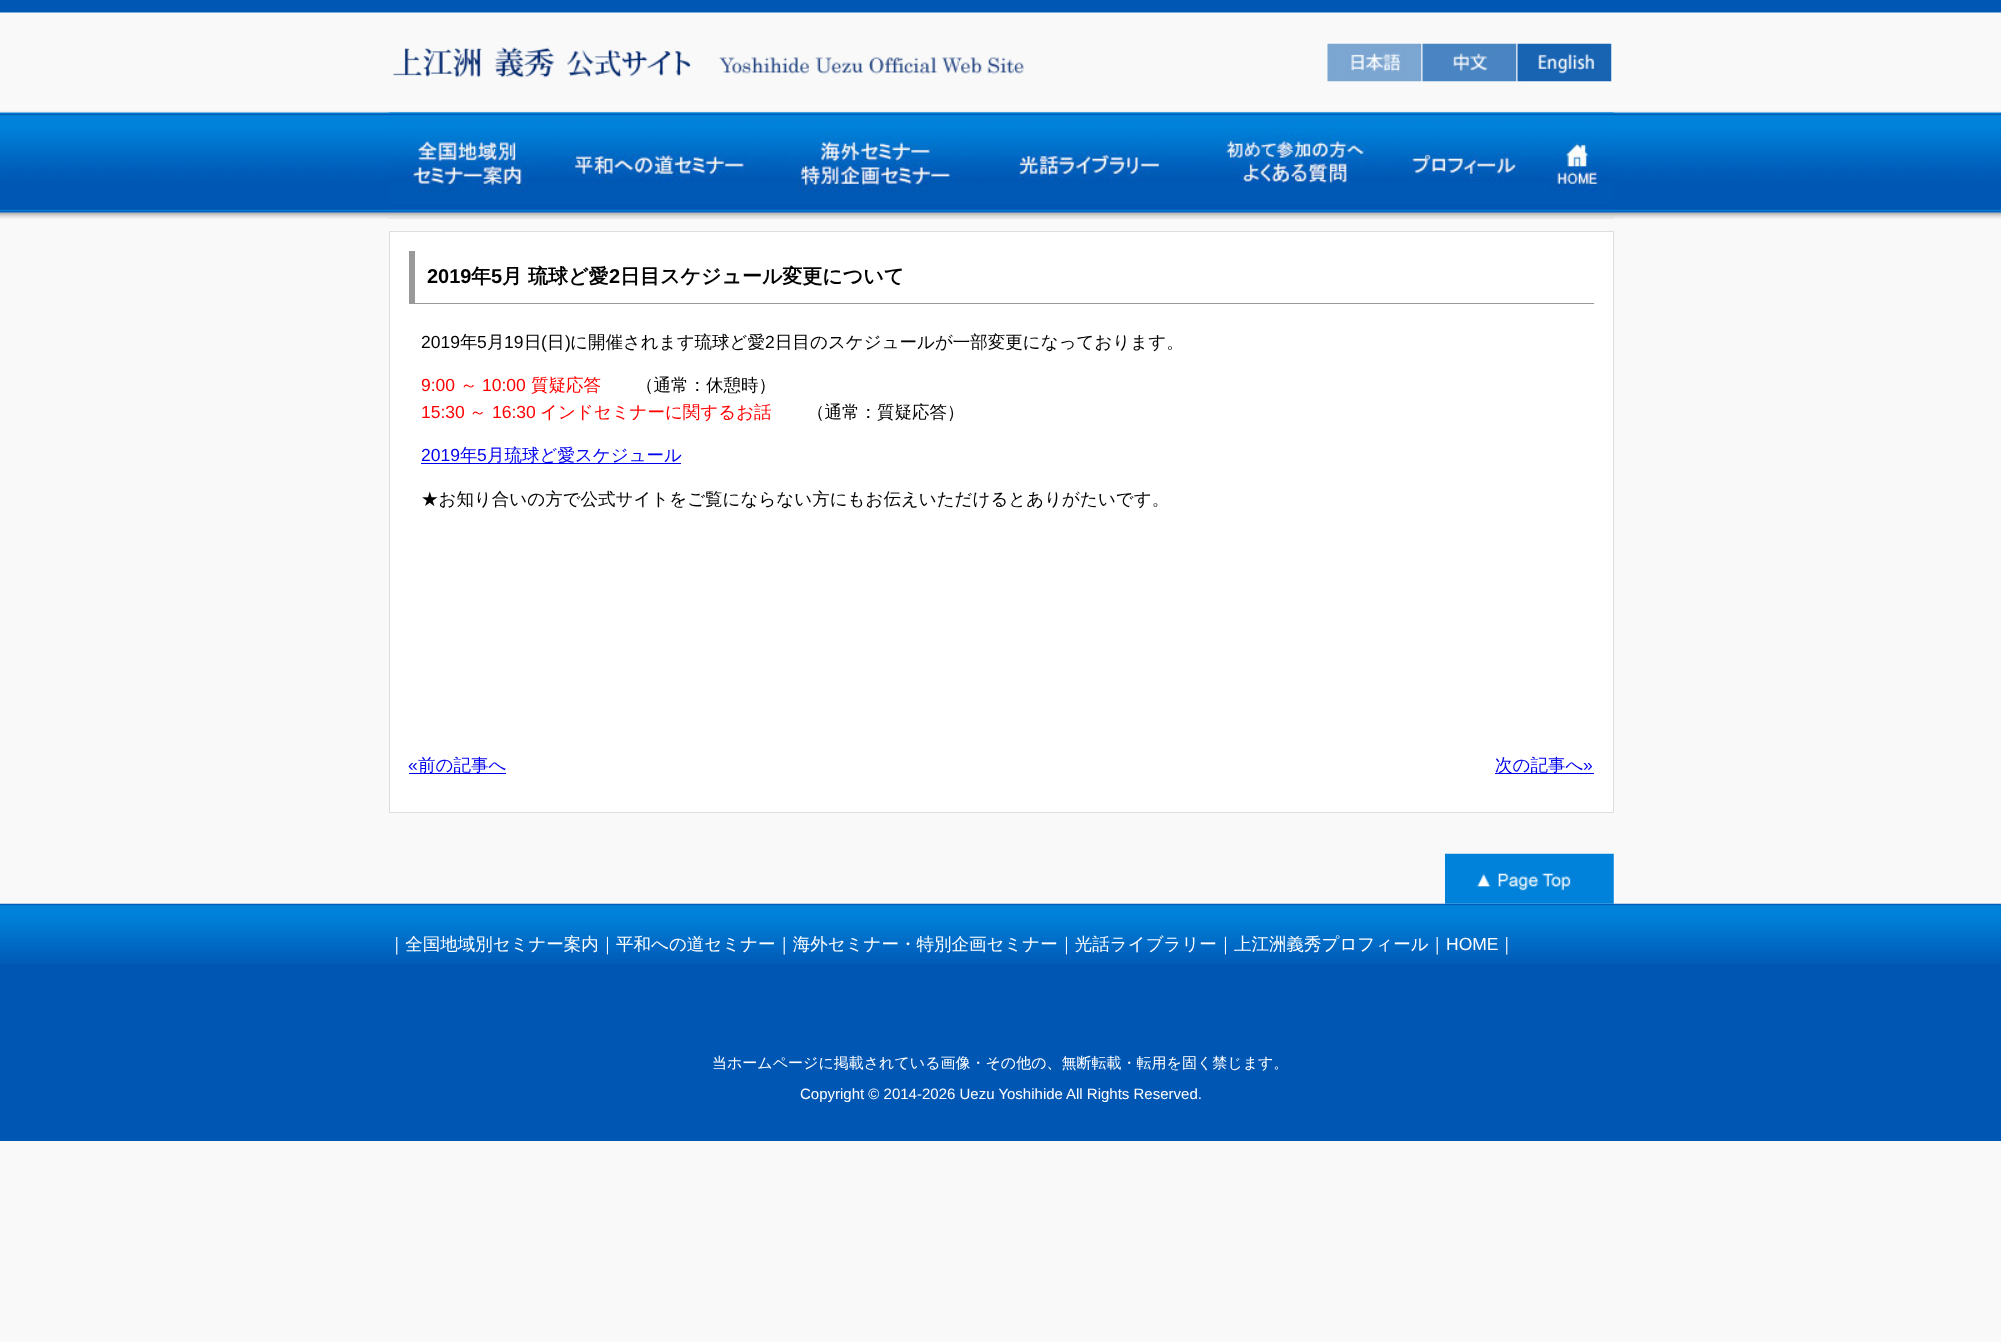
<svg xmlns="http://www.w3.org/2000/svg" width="2001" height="1342">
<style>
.a{font:bold 20px Liberation Sans;fill:#000}
.b{font:bold 20px WenQuanYi Zen Hei;fill:#000}
.c{font:17.5px Liberation Sans;fill:#000}
.d{font:500 17.5px WenQuanYi Zen Hei;fill:#000}
.e{font:17.5px Liberation Sans;fill:#f00}
.f{font:500 17.5px WenQuanYi Zen Hei;fill:#f00}
.g{font:17.5px Liberation Sans;fill:#00e}
.h{font:500 17.5px WenQuanYi Zen Hei;fill:#00e}
.i{font:500 17.5px WenQuanYi Zen Hei;fill:#fff}
.j{font:17.5px Liberation Sans;fill:#fff}
.k{font:500 15px WenQuanYi Zen Hei;fill:#fff}
.l{font:15px Liberation Sans;fill:#fff}
</style>
<rect width="100%" height="100%" fill="#f9f9f9"/>
<image href="1.png" x="0" y="0" width="2001" height="219"/>
<image href="2.png" x="392" y="44" width="632" height="36"/>
<image href="3.png" x="1327" y="43" width="95" height="39"/>
<image href="4.png" x="1422" y="43" width="95" height="39"/>
<image href="5.png" x="1517" y="43" width="95" height="39"/>
<image href="6.png" x="388" y="112" width="164" height="107"/>
<image href="7.png" x="551" y="112" width="213" height="107"/>
<image href="8.png" x="763" y="112" width="220" height="107"/>
<image href="9.png" x="982" y="112" width="213" height="107"/>
<image href="10.png" x="1195" y="112" width="194" height="107"/>
<image href="11.png" x="1388" y="112" width="151" height="107"/>
<image href="12.png" x="1538" y="112" width="76" height="107"/>
<path fill="#fff" stroke="#ddd" d="M389.5 231.5h1224v581H389.5z"/>
<path fill="#999" d="M409 303h1185v1H409z"/>
<path fill="#999" d="M409 251h6v53H409z"/>
<path fill="#00e" d="M421 463h260v1H421z"/>
<path fill="#00e" d="M409 773h97v1H409z"/>
<path fill="#00e" d="M1495 773h99v1H1495z"/>
<image href="14.png" x="0" y="903" width="2001" height="61"/>
<image href="13.png" x="1445" y="853" width="169" height="51"/>
<path fill="#0057b3" d="M0 964h2001v177H0z"/>
<text class="a" x="427" y="283">2019</text>
<text class="b" x="471" y="283">年</text>
<text class="a" x="491" y="283">5</text>
<text class="b" x="502" y="283">月 琉球ど愛</text>
<text class="a" x="609" y="283">2</text>
<text class="b" x="620" y="283">日目スケジュール変更について</text>
<text class="c" x="421" y="348">2019</text>
<text class="d" x="460" y="348">年</text>
<text class="c" x="477" y="348">5</text>
<text class="d" x="487" y="348">月</text>
<text class="c" x="504" y="348">19</text>
<text class="d" x="524" y="348">日</text>
<text class="c" x="541" y="348">(</text>
<text class="d" x="547" y="348">日</text>
<text class="c" x="565" y="348">)</text>
<text class="d" x="570" y="348">に開催されます琉球ど愛</text>
<text class="c" x="765" y="348">2</text>
<text class="d" x="775" y="348">日目のスケジュールが一部変更になっております。</text>
<text class="e" x="421" y="391">9:00</text>
<text class="f" x="460" y="391">～</text>
<text class="e" x="482" y="391">10:00</text>
<text class="f" x="531" y="391">質疑応答</text>
<text class="d" x="636" y="391">（通常：休憩時）</text>
<text class="e" x="421" y="418">15:30</text>
<text class="f" x="469" y="418">～</text>
<text class="e" x="492" y="418">16:30</text>
<text class="f" x="540" y="418">インドセミナーに関するお話</text>
<text class="d" x="807" y="418">（通常：質疑応答）</text>
<text class="g" x="421" y="461">2019</text>
<text class="h" x="460" y="461">年</text>
<text class="g" x="477" y="461">5</text>
<text class="h" x="487" y="461">月琉球ど愛スケジュール</text>
<text class="d" x="421" y="505">★お知り合いの方で公式サイトをご覧にならない方にもお伝えいただけるとありがたいです。</text>
<text class="g" x="408" y="771">«</text>
<text class="h" x="418" y="771">前の記事へ</text>
<text class="h" x="1495" y="771">次の記事へ</text>
<text class="g" x="1583" y="771">»</text>
<text class="i" x="388" y="950">｜全国地域別セミナー案内｜平和への道セミナー｜海外セミナー・特別企画セミナー｜光話ライブラリー｜上江洲義秀プロフィール｜</text>
<text class="j" x="1446" y="950">HOME</text>
<text class="i" x="1498" y="950">｜</text>
<text class="k" x="712" y="1068">当ホームページに掲載されている画像・その他の、無断転載・転用を固く禁じます。</text>
<text class="l" x="800" y="1099">Copyright © 2014-2026 Uezu Yoshihide</text>
<text class="l" x="1066" y="1099">All Rights Reserved.</text>
</svg>
